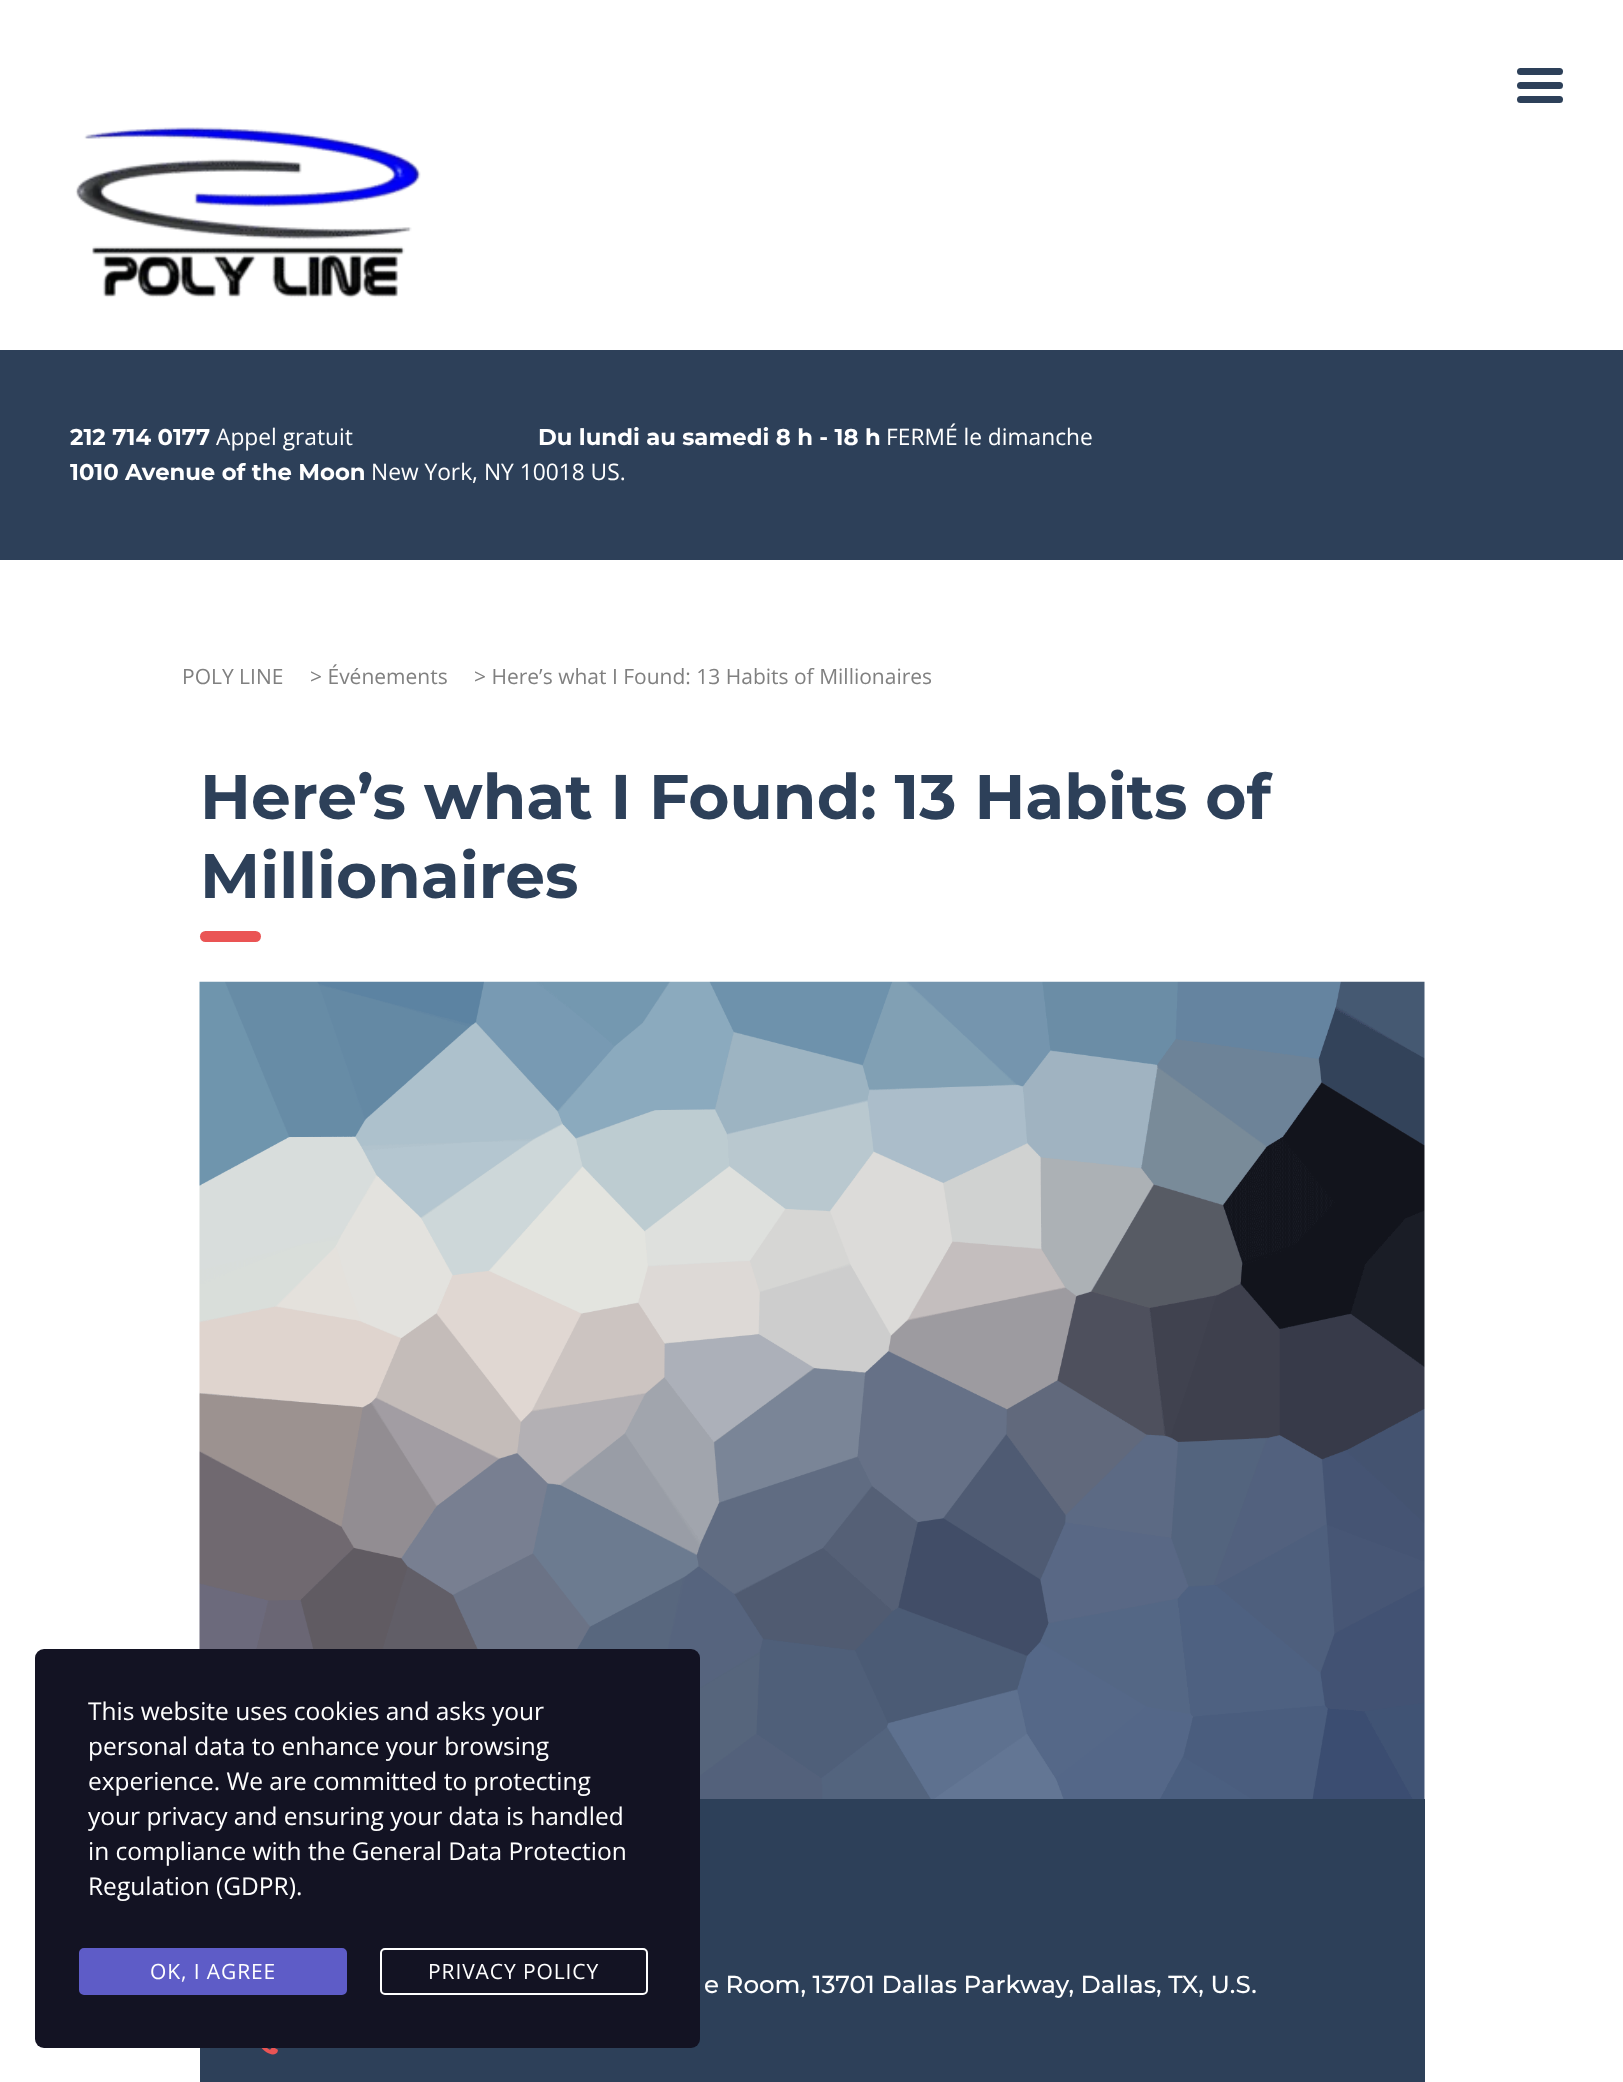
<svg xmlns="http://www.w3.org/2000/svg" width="1623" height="2082">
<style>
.a{font:bold 22.75px Montserrat;fill:#fff}
.b{font:22.75px Open Sans;fill:#fff}
.c{font:21px Open Sans;fill:#808080}
.d{font:bold 63px Montserrat;fill:#2d4059}
.e{font:500 24.5px Montserrat;fill:#fff}
.f{font:24.5px Open Sans;fill:#fff}
.g{font:21px Open Sans;letter-spacing:0.9px;fill:#fff}
</style>
<rect width="100%" height="100%" fill="#fff"/>
<rect fill="#2d4059" x="1517" y="82" width="46" height="7" rx="3.5"/>
<rect fill="#2d4059" x="1517" y="68" width="46" height="7" rx="3.5"/>
<rect fill="#2d4059" x="1517" y="96" width="46" height="7" rx="3.5"/>
<image href="1.png" x="75" y="127" width="346" height="171"/>
<path fill="#2d4059" d="M0 350h1623v210H0z"/>
<rect fill="#ea5454" x="200" y="931" width="61" height="11" rx="5.5"/>
<image href="2.png" x="199" y="981" width="1226" height="818"/>
<path fill="#2d4059" d="M200 1799h1225v283H200z"/>
<image href="3.png" x="261" y="2048" width="17" height="7"/>
<rect fill="#131323" x="35" y="1649" width="665" height="399" rx="9"/>
<rect fill="#5e5cc7" stroke="#5e5cc7" stroke-width="2" x="80" y="1949" width="266" height="45" rx="4"/>
<rect fill="none" stroke="#fff" stroke-width="2" x="381" y="1949" width="266" height="45" rx="4"/>
<text class="a" x="70" y="445">212 714 0177</text>
<text class="b" x="216" y="445">Appel gratuit</text>
<text class="a" x="538" y="445">Du lundi au samedi 8 h - 18 h</text>
<text class="b" x="886" y="445">FERMÉ le dimanche</text>
<text class="a" x="70" y="480">1010 Avenue of the Moon</text>
<text class="b" x="371" y="480">New York, NY 10018 US.</text>
<text class="c" x="182" y="684">POLY LINE</text>
<text class="c" x="310" y="684">&gt; Événements</text>
<text class="c" x="474" y="684">&gt; Here’s what I Found: 13 Habits of Millionaires</text>
<text class="d" x="200" y="819">Here’s what I Found: 13 Habits of</text>
<text class="d" x="200" y="898">Millionaires</text>
<text class="e" x="704" y="1993">e Room, 13701 Dallas Parkway, Dallas, TX, U.S.</text>
<text class="f" x="88" y="1720">This website uses cookies and asks your</text>
<text class="f" x="88" y="1755">personal data to enhance your browsing</text>
<text class="f" x="88" y="1790">experience. We are committed to protecting</text>
<text class="f" x="88" y="1825">your privacy and ensuring your data is handled</text>
<text class="f" x="88" y="1860">in compliance with the General Data Protection</text>
<text class="f" x="88" y="1895">Regulation (GDPR).</text>
<text class="g" x="150" y="1979">OK, I AGREE</text>
<text class="g" x="428" y="1979">PRIVACY POLICY</text>
</svg>
